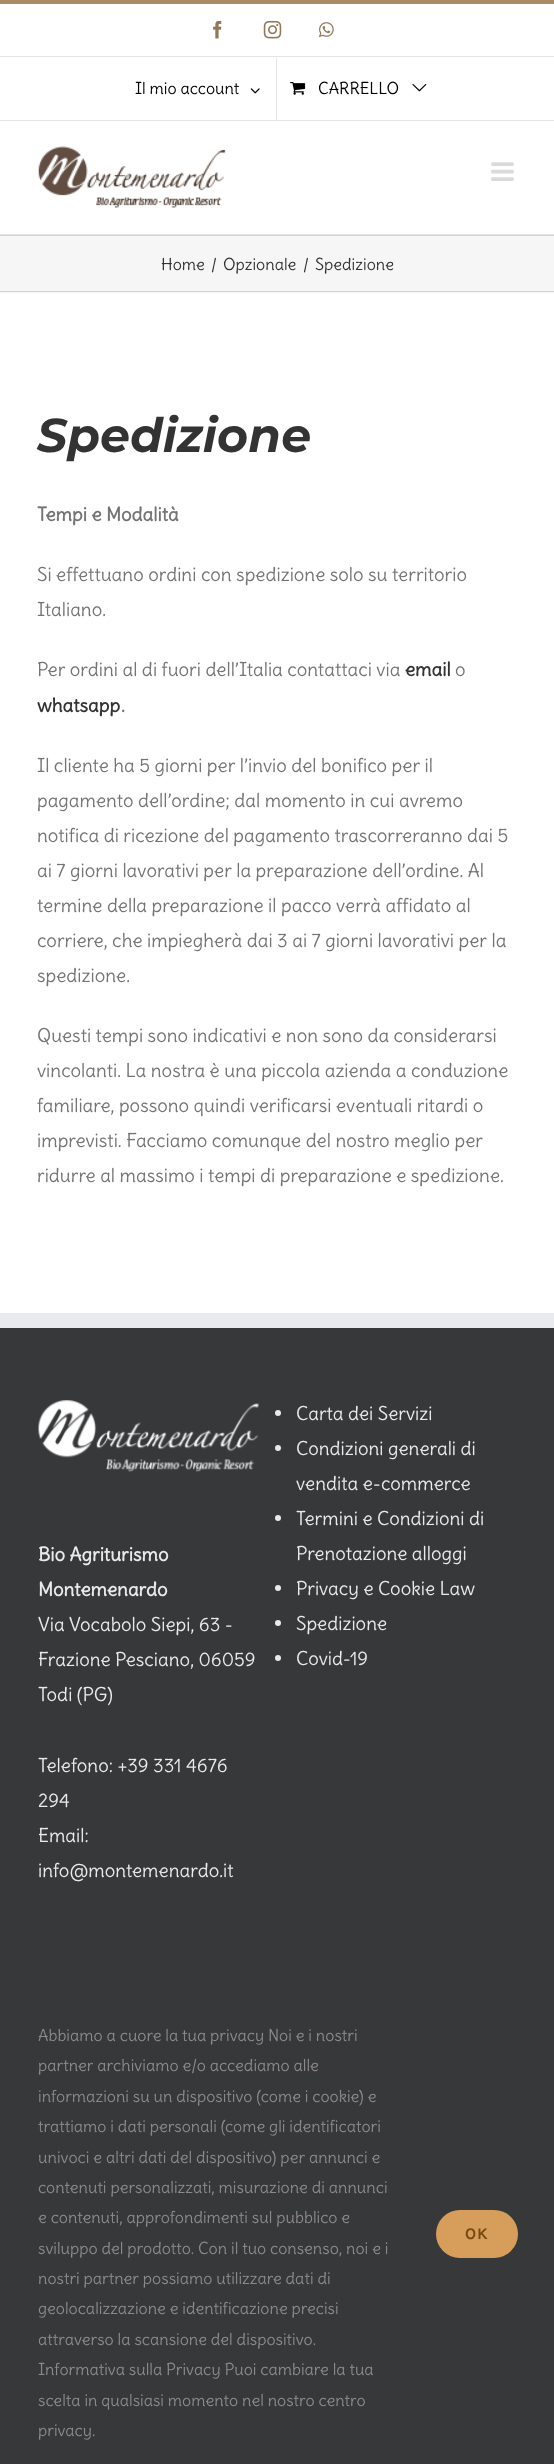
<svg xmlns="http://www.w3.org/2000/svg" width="554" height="2464">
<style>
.a{font:16.25px Delius;fill:#000}
.b{font:16.25px Delius;fill:#333}
.c{font:italic 100 47.5px Montserrat;fill:#333}
.d{font:bold 18.75px Delius;fill:#747474}
.e{font:18.75px Delius;fill:#747474}
.f{font:bold 18.75px Delius;fill:#333}
.g{font:bold 18.75px Delius;fill:#eaeaea}
.h{font:18.75px Delius;fill:#eaeaea}
.i{font:16.25px Delius;fill:#8c8989}
.j{font:bold 16.25px Karla;letter-spacing:1px;fill:#784910}
</style>
<rect width="100%" height="100%" fill="#fff"/>
<path fill="#ab8b65" d="M0 0h554v4H0z"/>
<path fill="#e5e5e5" d="M0 120h554v1H0z"/>
<path fill="#e5e5e5" d="M0 56h554v1H0z"/>
<image href="1.png" x="213" y="20" width="9" height="19"/>
<image href="2.png" x="263" y="20" width="19" height="19"/>
<image href="3.png" x="318" y="22" width="16" height="16"/>
<image href="4.png" x="250" y="88" width="10" height="6"/>
<path fill="#e5e5e5" d="M276 58h1v62H276z"/>
<image href="5.png" x="290" y="82" width="16" height="13"/>
<image href="6.png" x="412" y="84" width="15" height="8"/>
<path fill="#e5e5e5" d="M0 234h554v1H0z"/>
<image href="7.png" x="38" y="146" width="188" height="62"/>
<image href="8.png" x="491" y="162" width="23" height="19"/>
<path fill="#f6f6f6" d="M0 236h554v57H0z"/>
<path fill="#d2d3d4" d="M0 235h554v1H0z"/>
<path fill="#d2d3d4" d="M0 291h554v1H0z"/>
<path fill="#363839" d="M0 1328h554v1136H0z"/>
<path fill="#e9eaee" d="M0 1313h554v15H0z"/>
<image href="9.png" x="38" y="1399" width="221" height="73"/>
<circle fill="#eaeaea" cx="278" cy="1413" r="3"/>
<circle fill="#eaeaea" cx="278" cy="1448" r="3"/>
<circle fill="#eaeaea" cx="278" cy="1518" r="3"/>
<circle fill="#eaeaea" cx="278" cy="1588" r="3"/>
<circle fill="#eaeaea" cx="278" cy="1623" r="3"/>
<circle fill="#eaeaea" cx="278" cy="1658" r="3"/>
<rect fill="#d69e5a" x="436" y="2210" width="82" height="48" rx="24"/>
<text class="a" x="135" y="94">Il mio account</text>
<text class="a" x="318" y="94">CARRELLO</text>
<text class="b" x="161" y="270">Home</text>
<text class="b" x="211" y="270">/</text>
<text class="b" x="223" y="270">Opzionale</text>
<text class="b" x="303" y="270">/</text>
<text class="b" x="315" y="270">Spedizione</text>
<text class="c" x="37" y="452">Spedizione</text>
<text class="d" x="37" y="521">Tempi e Modalità</text>
<text class="e" x="37" y="581">Si effettuano ordini con spedizione solo su territorio</text>
<text class="e" x="37" y="616">Italiano.</text>
<text class="e" x="37" y="676">Per ordini al di fuori dell’Italia contattaci via</text>
<text class="f" x="405" y="676">email</text>
<text class="e" x="455" y="676">o</text>
<text class="f" x="37" y="712">whatsapp</text>
<text class="d" x="121" y="712">.</text>
<text class="e" x="37" y="772">Il cliente ha 5 giorni per l’invio del bonifico per il</text>
<text class="e" x="37" y="807">pagamento dell’ordine; dal momento in cui avremo</text>
<text class="e" x="37" y="842">notifica di ricezione del pagamento trascorreranno dai 5</text>
<text class="e" x="37" y="877">ai 7 giorni lavorativi per la preparazione dell’ordine. Al</text>
<text class="e" x="37" y="912">termine della preparazione il pacco verrà affidato al</text>
<text class="e" x="37" y="947">corriere, che impiegherà dai 3 ai 7 giorni lavorativi per la</text>
<text class="e" x="37" y="982">spedizione.</text>
<text class="e" x="37" y="1042">Questi tempi sono indicativi e non sono da considerarsi</text>
<text class="e" x="37" y="1077">vincolanti. La nostra è una piccola azienda a conduzione</text>
<text class="e" x="37" y="1112">familiare, possono quindi verificarsi eventuali ritardi o</text>
<text class="e" x="37" y="1147">imprevisti. Facciamo comunque del nostro meglio per</text>
<text class="e" x="37" y="1182">ridurre al massimo i tempi di preparazione e spedizione.</text>
<text class="g" x="38" y="1561">Bio Agriturismo</text>
<text class="g" x="38" y="1596">Montemenardo</text>
<text class="h" x="38" y="1631">Via Vocabolo Siepi, 63 -</text>
<text class="h" x="38" y="1666">Frazione Pesciano, 06059</text>
<text class="h" x="38" y="1701">Todi (PG)</text>
<text class="h" x="38" y="1772">Telefono: +39 331 4676</text>
<text class="h" x="38" y="1807">294</text>
<text class="h" x="38" y="1842">Email:</text>
<text class="h" x="38" y="1877">info@montemenardo.it</text>
<text class="h" x="296" y="1420">Carta dei Servizi</text>
<text class="h" x="296" y="1455">Condizioni generali di</text>
<text class="h" x="296" y="1490">vendita e-commerce</text>
<text class="h" x="296" y="1525">Termini e Condizioni di</text>
<text class="h" x="296" y="1560">Prenotazione alloggi</text>
<text class="h" x="296" y="1595">Privacy e Cookie Law</text>
<text class="h" x="296" y="1630">Spedizione</text>
<text class="h" x="296" y="1665">Covid-19</text>
<text class="i" x="38" y="2041">Abbiamo a cuore la tua privacy Noi e i nostri</text>
<text class="i" x="38" y="2071">partner archiviamo e/o accediamo alle</text>
<text class="i" x="38" y="2102">informazioni su un dispositivo (come i cookie) e</text>
<text class="i" x="38" y="2132">trattiamo i dati personali (come gli identificatori</text>
<text class="i" x="38" y="2163">univoci e altri dati del dispositivo) per annunci e</text>
<text class="i" x="38" y="2193">contenuti personalizzati, misurazione di annunci</text>
<text class="i" x="38" y="2223">e contenuti, approfondimenti sul pubblico e</text>
<text class="i" x="38" y="2254">sviluppo del prodotto. Con il tuo consenso, noi e i</text>
<text class="i" x="38" y="2284">nostri partner possiamo utilizzare dati di</text>
<text class="i" x="38" y="2314">geolocalizzazione e identificazione precisi</text>
<text class="i" x="38" y="2345">attraverso la scansione del dispositivo.</text>
<text class="i" x="38" y="2375">Informativa sulla Privacy Puoi cambiare la tua</text>
<text class="i" x="38" y="2406">scelta in qualsiasi momento nel nostro centro</text>
<text class="i" x="38" y="2436">privacy.</text>
<text class="j" x="465" y="2239">OK</text>
</svg>
